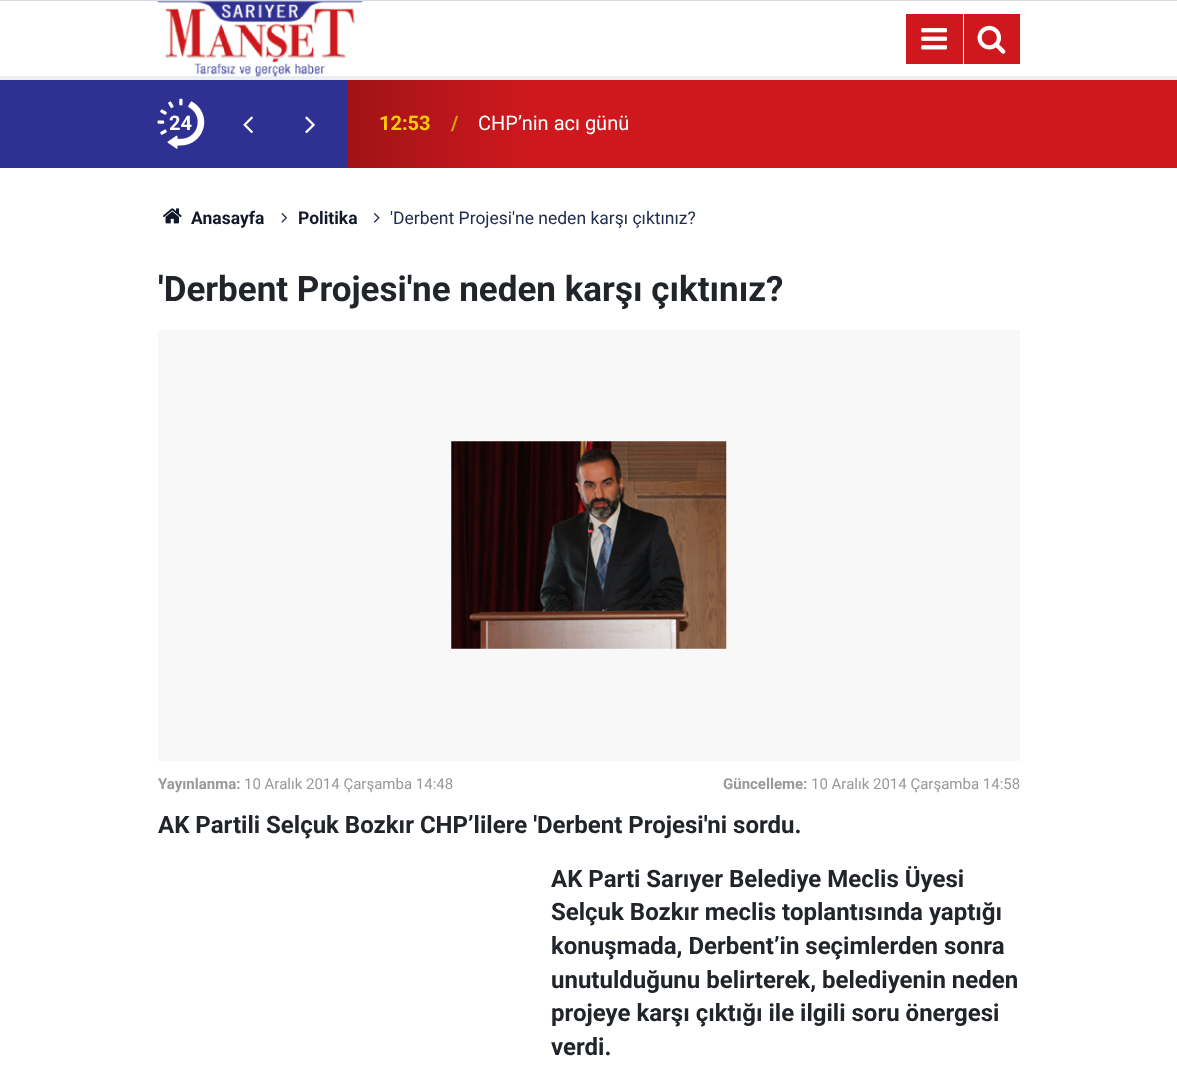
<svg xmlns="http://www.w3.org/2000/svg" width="1177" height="1084">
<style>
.a{font:bold 20px Roboto;fill:#fff}
.b{font:bold 20px Roboto;fill:#ffcb05}
.c{font:bold 20px Roboto;fill:#d1a600}
.d{font:20px Roboto;fill:#fff}
.e{font:bold 17.5px Roboto;fill:#12182a}
.f{font:17.5px Roboto;fill:#212c4e}
.g{font:bold 35px Roboto;fill:#212529}
.h{font:bold 15px Roboto;fill:#999}
.i{font:15px Roboto;fill:#999}
.j{font:bold 24px Roboto;fill:#212529}
</style>
<defs>
<linearGradient id="g1" gradientUnits="userSpaceOnUse" x1="158" y1="124" x2="1020" y2="124"><stop offset="0.07" stop-color="#2e3192"/><stop offset="0.22" stop-color="#2e3192"/><stop offset="0.22" stop-color="#a01317"/><stop offset="0.43" stop-color="#ce181e"/></linearGradient>
</defs>
<rect width="100%" height="100%" fill="#fff"/>
<path fill="#d7dae1" d="M0 0h1177v1H0z"/>
<path fill="#ecedee" d="M0 76h1177v4H0z"/>
<image href="1.png" x="157" y="1" width="206" height="76"/>
<path fill="#ce181e" d="M906 14h57v50H906z"/>
<image href="2.png" x="921" y="28" width="26" height="22"/>
<path fill="#ce181e" d="M964 14h56v50H964z"/>
<image href="3.png" x="977" y="25" width="29" height="29"/>
<path fill="#2e3192" d="M0 80h158v88H0z"/>
<path fill="#ce181e" d="M1020 80h157v88H1020z"/>
<path fill="url(#g1)" d="M158 80h862v88H158z"/>
<image href="4.png" x="157" y="98" width="48" height="51"/>
<image href="5.png" x="243" y="116" width="10" height="18"/>
<image href="6.png" x="305" y="116" width="10" height="18"/>
<image href="7.png" x="162" y="208" width="20" height="16"/>
<image href="8.png" x="281" y="213" width="6" height="10"/>
<image href="9.png" x="373" y="213" width="7" height="10"/>
<path fill="#f8f8f8" d="M158 330h862v431H158z"/>
<image href="10.png" x="451" y="441" width="276" height="208"/>
<text class="a" x="169" y="130">24</text>
<text class="b" x="379" y="130">12:53</text>
<text class="c" x="451" y="130">/</text>
<text class="d" x="478" y="130">CHP’nin acı günü</text>
<text class="e" x="191" y="224">Anasayfa</text>
<text class="e" x="298" y="224">Politika</text>
<text class="f" x="390" y="224">'Derbent Projesi'ne neden karşı çıktınız?</text>
<text class="g" x="158" y="301">'Derbent Projesi'ne neden karşı çıktınız?</text>
<text class="h" x="158" y="789">Yayınlanma:</text>
<text class="i" x="244" y="789">10 Aralık 2014 Çarşamba 14:48</text>
<text class="h" x="723" y="789">Güncelleme:</text>
<text class="i" x="811" y="789">10 Aralık 2014 Çarşamba 14:58</text>
<text class="j" x="158" y="833">AK Partili Selçuk Bozkır CHP’lilere 'Derbent Projesi'ni sordu.</text>
<text class="j" x="551" y="887">AK Parti Sarıyer Belediye Meclis Üyesi</text>
<text class="j" x="551" y="920">Selçuk Bozkır meclis toplantısında yaptığı</text>
<text class="j" x="551" y="954">konuşmada, Derbent’in seçimlerden sonra</text>
<text class="j" x="551" y="988">unutulduğunu belirterek, belediyenin neden</text>
<text class="j" x="551" y="1021">projeye karşı çıktığı ile ilgili soru önergesi</text>
<text class="j" x="551" y="1055">verdi.</text>
</svg>
